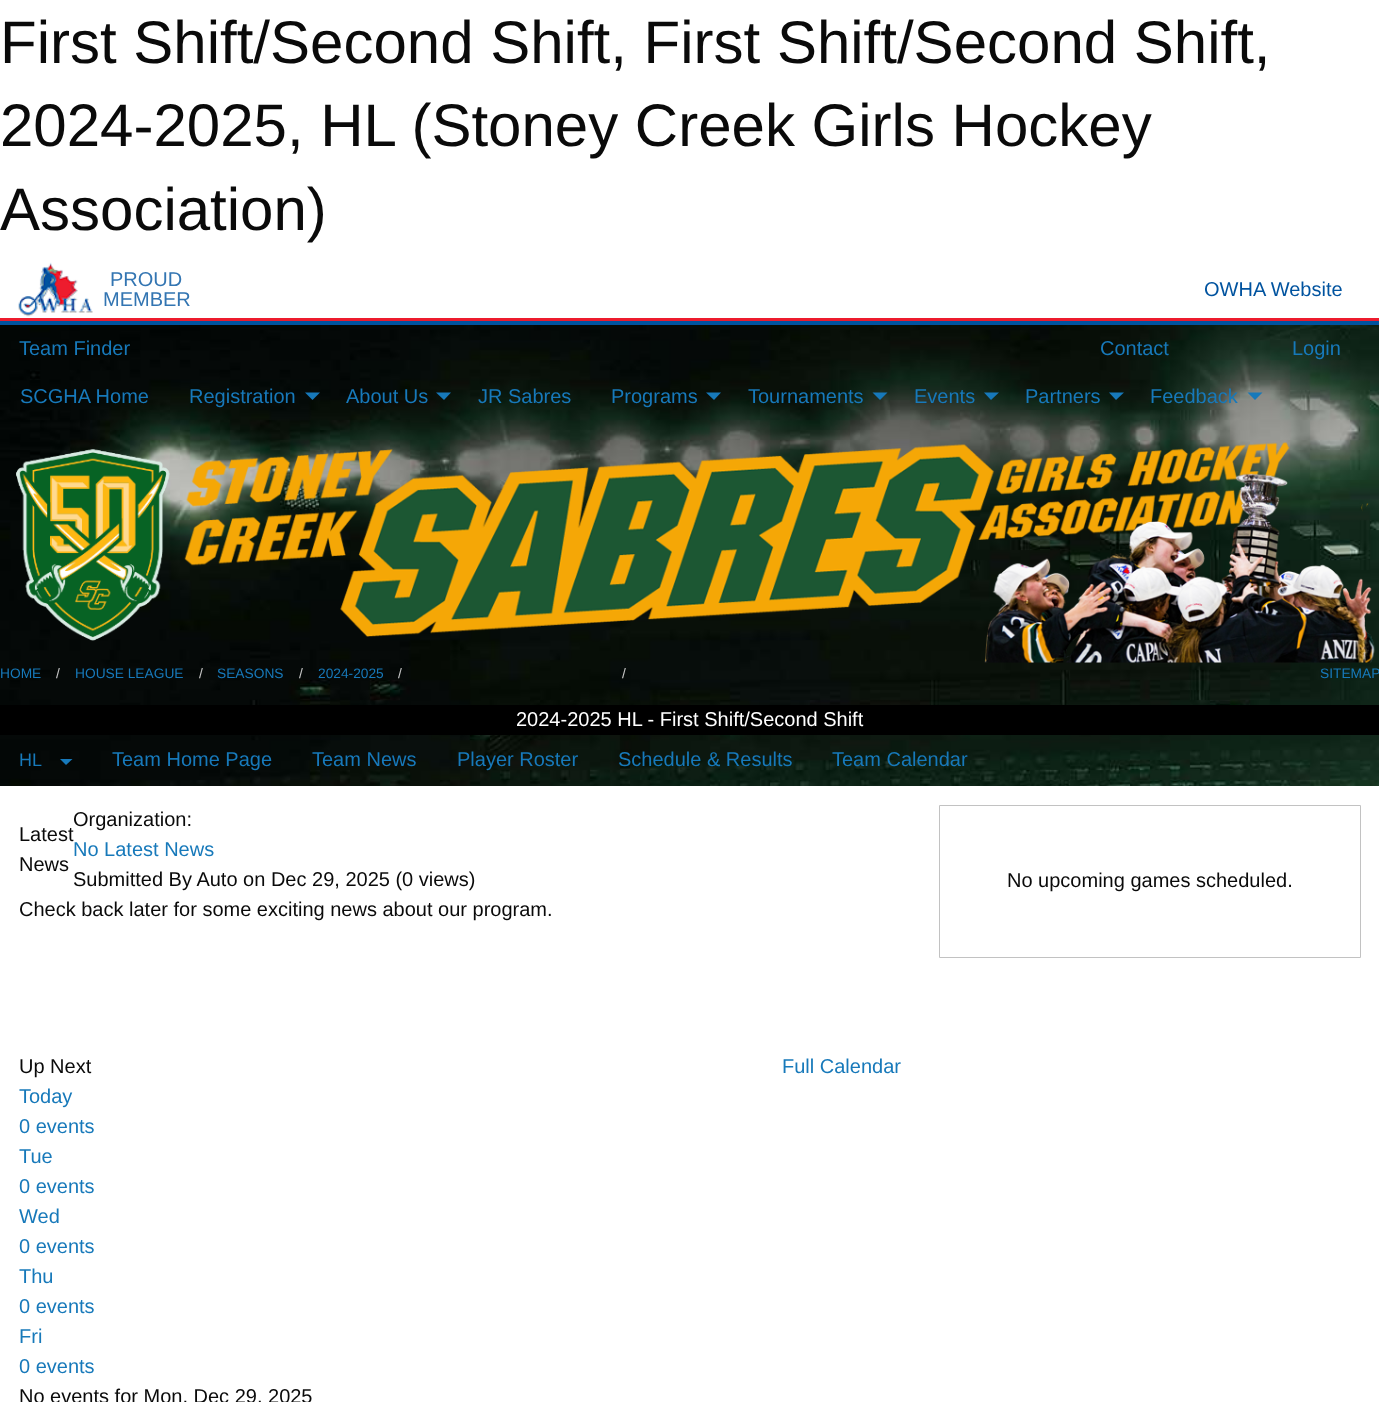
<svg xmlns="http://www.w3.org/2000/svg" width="1379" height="1402">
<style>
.a{font:60px Liberation Sans;fill:#0a0a0a}
.b{font:20px Liberation Sans;fill:#3375b2}
.c{font:20px Liberation Sans;fill:#00539f}
.d{font:20px Liberation Sans;fill:#1779ba}
.e{font:13.75px Liberation Sans;fill:#1779ba}
.f{font:13.75px Liberation Sans;fill:#cacaca}
.g{font:20px Liberation Sans;fill:#fff}
.h{font:18px Liberation Sans;fill:#1779ba}
.i{font:20px Liberation Sans;fill:#0a0a0a}
</style>
<rect width="100%" height="100%" fill="#fff"/>
<image href="1.png" x="18" y="262" width="75" height="55"/>
<path fill="#ed1b2d" d="M0 318h1379v3H0z"/>
<path fill="#00539f" d="M0 321h1379v4H0z"/>
<image href="2.png" x="0" y="325" width="1379" height="461"/>
<path fill="#1779ba" d="M305 392.5h15l-7.5 7.5z"/>
<path fill="#1779ba" d="M436 392.5h15l-7 7.5z"/>
<path fill="#1779ba" d="M706 392.5h15l-7 7.5z"/>
<path fill="#1779ba" d="M872.5 392.5h15l-7.5 7.5z"/>
<path fill="#1779ba" d="M984 392.5h15l-8 7.5z"/>
<path fill="#1779ba" d="M1109 392.5h15l-8 7.5z"/>
<path fill="#1779ba" d="M1247.5 392.5h15l-7.5 7.5z"/>
<image href="3.png" x="16" y="442" width="1359" height="221"/>
<path fill="#000" d="M0 705h1379v30H0z"/>
<path fill="#1779ba" d="M60 759h12.5l-6.5 6z"/>
<path fill="none" stroke="#c2c2c2" d="M939.5 805.5h421v152H939.5z"/>
<text class="a" x="0" y="63">First Shift/Second Shift, First Shift/Second Shift,</text>
<text class="a" x="0" y="146">2024-2025, HL (Stoney Creek Girls Hockey</text>
<text class="a" x="0" y="230">Association)</text>
<text class="b" x="110" y="286">PROUD</text>
<text class="b" x="103" y="306">MEMBER</text>
<text class="c" x="1204" y="296">OWHA Website</text>
<text class="d" x="19" y="355">Team Finder</text>
<text class="d" x="1100" y="355">Contact</text>
<text class="d" x="1292" y="355">Login</text>
<text class="d" x="20" y="403">SCGHA Home</text>
<text class="d" x="189" y="403">Registration</text>
<text class="d" x="346" y="403">About Us</text>
<text class="d" x="478" y="403">JR Sabres</text>
<text class="d" x="611" y="403">Programs</text>
<text class="d" x="748" y="403">Tournaments</text>
<text class="d" x="914" y="403">Events</text>
<text class="d" x="1025" y="403">Partners</text>
<text class="d" x="1150" y="403">Feedback</text>
<text class="e" x="0" y="678">HOME</text>
<text class="f" x="56" y="678">/</text>
<text class="e" x="75" y="678">HOUSE LEAGUE</text>
<text class="f" x="199" y="678">/</text>
<text class="e" x="217" y="678">SEASONS</text>
<text class="f" x="299" y="678">/</text>
<text class="e" x="318" y="678">2024-2025</text>
<text class="f" x="398" y="678">/</text>
<text class="f" x="622" y="678">/</text>
<text class="e" x="1320" y="678">SITEMAP</text>
<text class="g" x="516" y="726">2024-2025 HL - First Shift/Second Shift</text>
<text class="h" x="19" y="766">HL</text>
<text class="d" x="112" y="766">Team Home Page</text>
<text class="d" x="312" y="766">Team News</text>
<text class="d" x="457" y="766">Player Roster</text>
<text class="d" x="618" y="766">Schedule &amp; Results</text>
<text class="d" x="832" y="766">Team Calendar</text>
<text class="i" x="19" y="841">Latest</text>
<text class="i" x="19" y="871">News</text>
<text class="i" x="73" y="826">Organization:</text>
<text class="d" x="73" y="856">No Latest News</text>
<text class="i" x="73" y="886">Submitted By Auto on Dec 29, 2025 (0 views)</text>
<text class="i" x="19" y="916">Check back later for some exciting news about our program.</text>
<text class="i" x="1007" y="887">No upcoming games scheduled.</text>
<text class="i" x="19" y="1073">Up Next</text>
<text class="d" x="782" y="1073">Full Calendar</text>
<text class="d" x="19" y="1103">Today</text>
<text class="d" x="19" y="1133">0 events</text>
<text class="d" x="19" y="1163">Tue</text>
<text class="d" x="19" y="1193">0 events</text>
<text class="d" x="19" y="1223">Wed</text>
<text class="d" x="19" y="1253">0 events</text>
<text class="d" x="19" y="1283">Thu</text>
<text class="d" x="19" y="1313">0 events</text>
<text class="d" x="19" y="1343">Fri</text>
<text class="d" x="19" y="1373">0 events</text>
<text class="i" x="19" y="1403">No events for Mon, Dec 29, 2025</text>
</svg>
